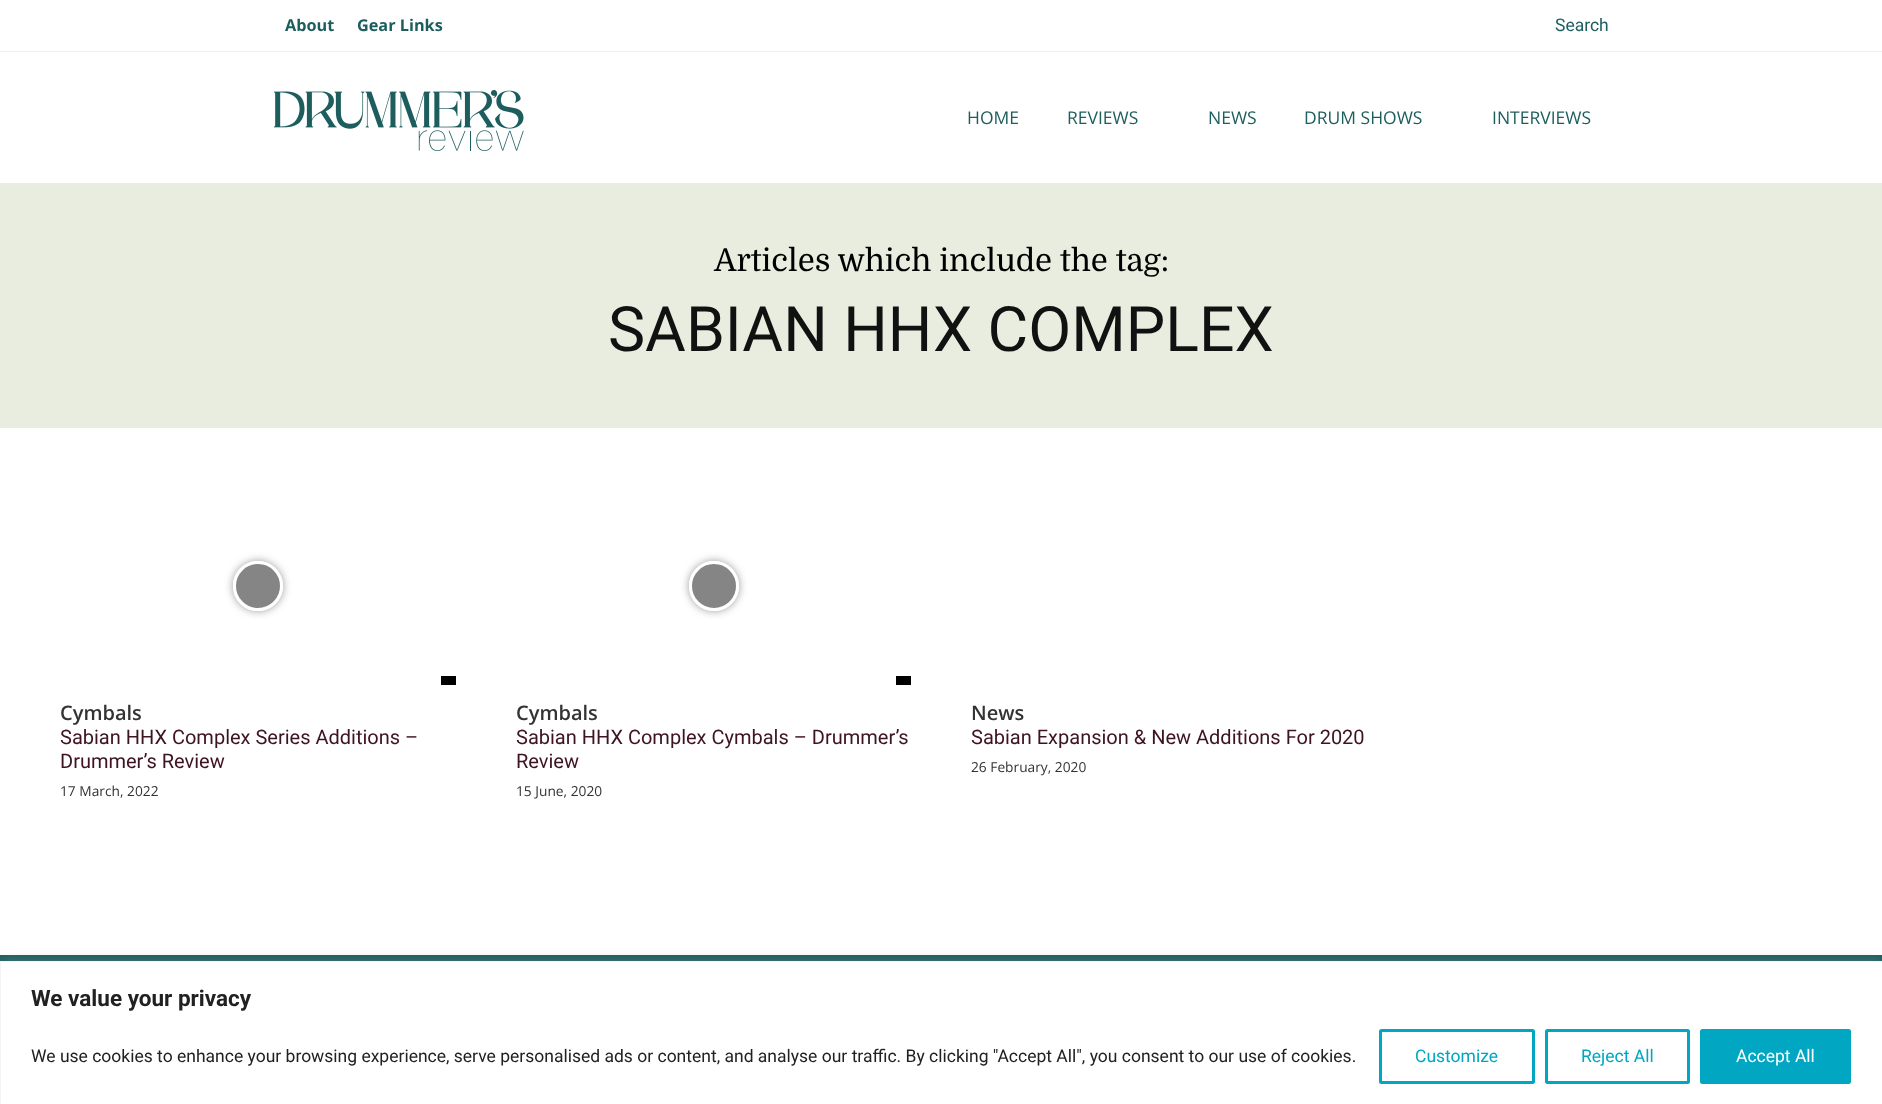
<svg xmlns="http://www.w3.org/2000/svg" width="1882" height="1104">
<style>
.a{font:bold 16.25px Open Sans;fill:#1d5d5e}
.b{font:17.5px Roboto;fill:#1d5d5e}
.c{font:17.5px Open Sans;fill:#1d5d5e}
.d{font:31.25px Domine;fill:#000}
.e{font:62.5px Roboto;fill:#111}
.f{font:600 20px Open Sans;fill:#333}
.g{font:20px Roboto;fill:#3e1322}
.h{font:13.75px Open Sans;fill:#333}
.i{font:bold 22.5px Roboto;fill:#212121}
.j{font:17.5px Roboto;fill:#212121}
.k{font:17.5px Roboto;fill:#01a7c2}
.l{font:17.5px Roboto;fill:#fff}
</style>
<defs>
<clipPath id="clip1"><path d="M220 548h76v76h-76zm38 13c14 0 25 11 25 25c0 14-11 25-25 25c-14 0-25-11-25-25c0-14 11-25 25-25z" clip-rule="evenodd"/></clipPath>
<clipPath id="clip2"><path d="M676 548h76v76h-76zm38 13c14 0 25 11 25 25c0 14-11 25-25 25c-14 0-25-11-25-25c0-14 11-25 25-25z" clip-rule="evenodd"/></clipPath>
</defs>
<rect width="100%" height="100%" fill="#fff"/>
<path fill="#eee" d="M0 51h1882v1H0z"/>
<image href="1.png" x="274" y="90" width="250" height="61"/>
<path fill="#e8eddf" d="M0 183h1882v245H0z"/>
<g clip-path="url(#clip1)">
<rect fill="#00000066" filter="blur(4px)" x="233" y="561" width="50" height="50" rx="25"/>
</g>
<circle fill="#0000007a" stroke="#fff" stroke-width="3" cx="258" cy="586" r="23.5"/>
<path fill="#000" d="M441 676h15v9H441z"/>
<g clip-path="url(#clip2)">
<rect fill="#00000066" filter="blur(4px)" x="689" y="561" width="50" height="50" rx="25"/>
</g>
<circle fill="#0000007a" stroke="#fff" stroke-width="3" cx="714" cy="586" r="23.5"/>
<path fill="#000" d="M896 676h15v9H896z"/>
<path fill="#1d5d5e" d="M0 955h1882v6H0z"/>
<path fill="#acabab4d" filter="blur(6px)" d="M0 960h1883v144H0z"/>
<path fill="#fff" stroke="#f4f4f4" d="M0.5 961.5h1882v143H0.5z"/>
<rect fill="none" stroke="#01a7c2" stroke-width="3" x="1380.5" y="1030.5" width="153" height="52" rx="1"/>
<rect fill="none" stroke="#01a7c2" stroke-width="3" x="1546.5" y="1030.5" width="142" height="52" rx="1"/>
<rect fill="#01a7c2" stroke="#01a7c2" stroke-width="3" x="1701.5" y="1030.5" width="148" height="52" rx="1"/>
<text class="a" x="285" y="31">About</text>
<text class="a" x="357" y="31">Gear Links</text>
<text class="b" x="1555" y="31">Search</text>
<text class="c" x="967" y="124">HOME</text>
<text class="c" x="1067" y="124">REVIEWS</text>
<text class="c" x="1208" y="124">NEWS</text>
<text class="c" x="1304" y="124">DRUM SHOWS</text>
<text class="c" x="1492" y="124">INTERVIEWS</text>
<text class="d" x="714" y="271">Articles which include the tag:</text>
<text class="e" x="608" y="351">SABIAN HHX COMPLEX</text>
<text class="f" x="60" y="720">Cymbals</text>
<text class="g" x="60" y="744">Sabian HHX Complex Series Additions –</text>
<text class="g" x="60" y="768">Drummer’s Review</text>
<text class="h" x="60" y="796">17 March, 2022</text>
<text class="f" x="516" y="720">Cymbals</text>
<text class="g" x="516" y="744">Sabian HHX Complex Cymbals – Drummer’s</text>
<text class="g" x="516" y="768">Review</text>
<text class="h" x="516" y="796">15 June, 2020</text>
<text class="f" x="971" y="720">News</text>
<text class="g" x="971" y="744">Sabian Expansion &amp; New Additions For 2020</text>
<text class="h" x="971" y="772">26 February, 2020</text>
<text class="i" x="31" y="1006">We value your privacy</text>
<text class="j" x="31" y="1062">We use cookies to enhance your browsing experience, serve personalised ads or content, and analyse our traffic. By clicking "Accept All", you consent to our use of cookies.</text>
<text class="k" x="1415" y="1062">Customize</text>
<text class="k" x="1581" y="1062">Reject All</text>
<text class="l" x="1736" y="1062">Accept All</text>
</svg>
